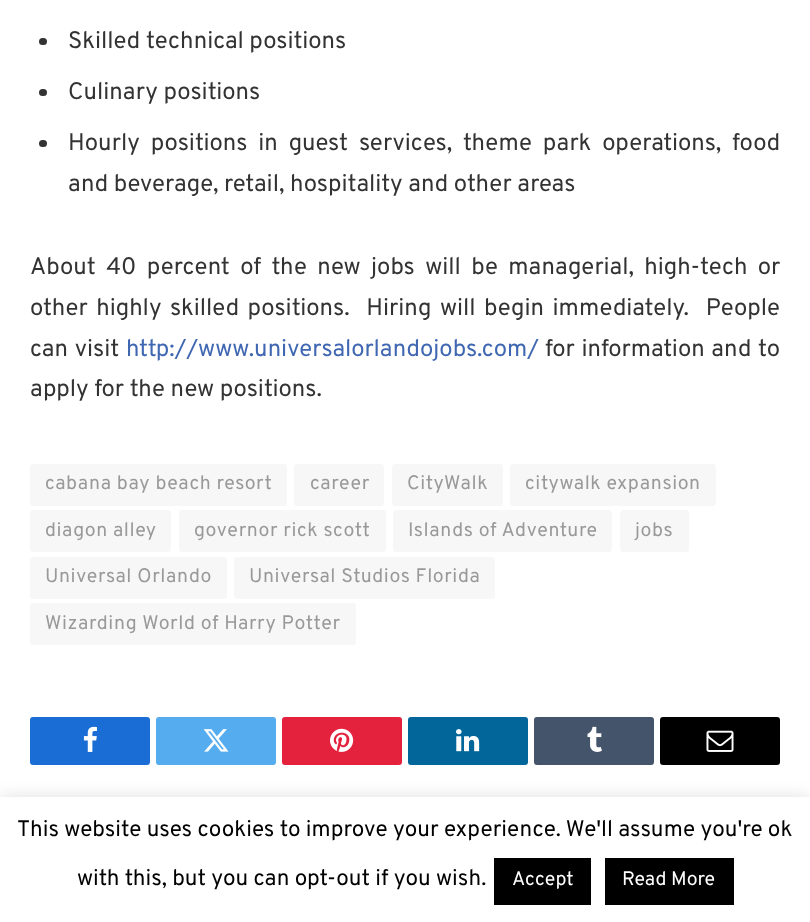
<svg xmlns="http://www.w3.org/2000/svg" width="810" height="922">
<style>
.a{font:23.9px Overpass;fill:#333}
.b{font:23.9px Overpass;fill:#4068b2}
.c{font:19.5px Overpass;letter-spacing:0.6px;fill:#999}
.d{font:22.5px Overpass;fill:#000}
.e{font:19.5px Overpass;fill:#fff}
</style>
<rect width="100%" height="100%" fill="#fff"/>
<rect fill="#333" x="39" y="38" width="8" height="7" rx="3.5"/>
<rect fill="#333" x="39" y="89" width="8" height="7" rx="3.5"/>
<rect fill="#333" x="39" y="140" width="8" height="7" rx="3.5"/>
<rect fill="#f7f7f7" x="30" y="464" width="257" height="42" rx="3"/>
<rect fill="#f7f7f7" x="294" y="464" width="90" height="42" rx="3"/>
<rect fill="#f7f7f7" x="392" y="464" width="111" height="42" rx="3"/>
<rect fill="#f7f7f7" x="510" y="464" width="206" height="42" rx="3"/>
<rect fill="#f7f7f7" x="30" y="510" width="141" height="42" rx="3"/>
<rect fill="#f7f7f7" x="179" y="510" width="207" height="42" rx="3"/>
<rect fill="#f7f7f7" x="393" y="510" width="219" height="42" rx="3"/>
<rect fill="#f7f7f7" x="620" y="510" width="69" height="42" rx="3"/>
<rect fill="#f7f7f7" x="30" y="557" width="197" height="42" rx="3"/>
<rect fill="#f7f7f7" x="234" y="557" width="261" height="42" rx="3"/>
<rect fill="#f7f7f7" x="30" y="603" width="326" height="42" rx="3"/>
<rect fill="#1a6dd4" x="30" y="717" width="120" height="48" rx="3"/>
<image href="1.png" x="83" y="726" width="14" height="26"/>
<rect fill="#55acef" x="156" y="717" width="120" height="48" rx="3"/>
<image href="2.png" x="203" y="729" width="26" height="23"/>
<rect fill="#e4223e" x="282" y="717" width="120" height="48" rx="3"/>
<image href="3.png" x="330" y="728" width="24" height="24"/>
<rect fill="#02669a" x="408" y="717" width="120" height="48" rx="3"/>
<image href="4.png" x="456" y="729" width="24" height="23"/>
<rect fill="#44546b" x="534" y="717" width="120" height="48" rx="3"/>
<image href="5.png" x="587" y="726" width="15" height="26"/>
<rect fill="#000" x="660" y="717" width="120" height="48" rx="3"/>
<image href="6.png" x="706" y="730" width="28" height="22"/>
<path fill="#acabab4d" filter="blur(7.5px)" d="M0 795h810v126H0z"/>
<path fill="#fff" d="M0 797h810v125H0z"/>
<path fill="#000" d="M494 858h97v47H494z"/>
<path fill="#000" d="M605 858h129v47H605z"/>
<text class="a" x="68" y="48">Skilled technical positions</text>
<text class="a" x="68" y="99">Culinary positions</text>
<text class="a" x="68" y="150" word-spacing="5.25">Hourly positions in guest services, theme park operations, food</text>
<text class="a" x="68" y="191">and beverage, retail, hospitality and other areas</text>
<text class="a" x="30" y="274" word-spacing="4.75">About 40 percent of the new jobs will be managerial, high-tech or</text>
<text class="a" xml:space="preserve" x="30" y="315" word-spacing="2.75">other highly skilled positions.  Hiring will begin immediately.  People</text>
<text class="a" x="30" y="356" word-spacing="1">can visit</text>
<text class="b" x="126" y="356">http://www.universalorlandojobs.com/</text>
<text class="a" x="545" y="356" word-spacing="1">for information and to</text>
<text class="a" x="30" y="396">apply for the new positions.</text>
<text class="c" x="45" y="489">cabana bay beach resort</text>
<text class="c" x="310" y="489">career</text>
<text class="c" x="407" y="489">CityWalk</text>
<text class="c" x="525" y="489">citywalk expansion</text>
<text class="c" x="45" y="536">diagon alley</text>
<text class="c" x="194" y="536">governor rick scott</text>
<text class="c" x="408" y="536">Islands of Adventure</text>
<text class="c" x="635" y="536">jobs</text>
<text class="c" x="45" y="582">Universal Orlando</text>
<text class="c" x="249" y="582">Universal Studios Florida</text>
<text class="c" x="45" y="629">Wizarding World of Harry Potter</text>
<text class="d" x="17" y="836">This website uses cookies to improve your experience. We'll assume you're ok</text>
<text class="d" x="77" y="885">with this, but you can opt-out if you wish.</text>
<text class="e" x="512" y="885">Accept</text>
<text class="e" x="622" y="885">Read More</text>
</svg>
